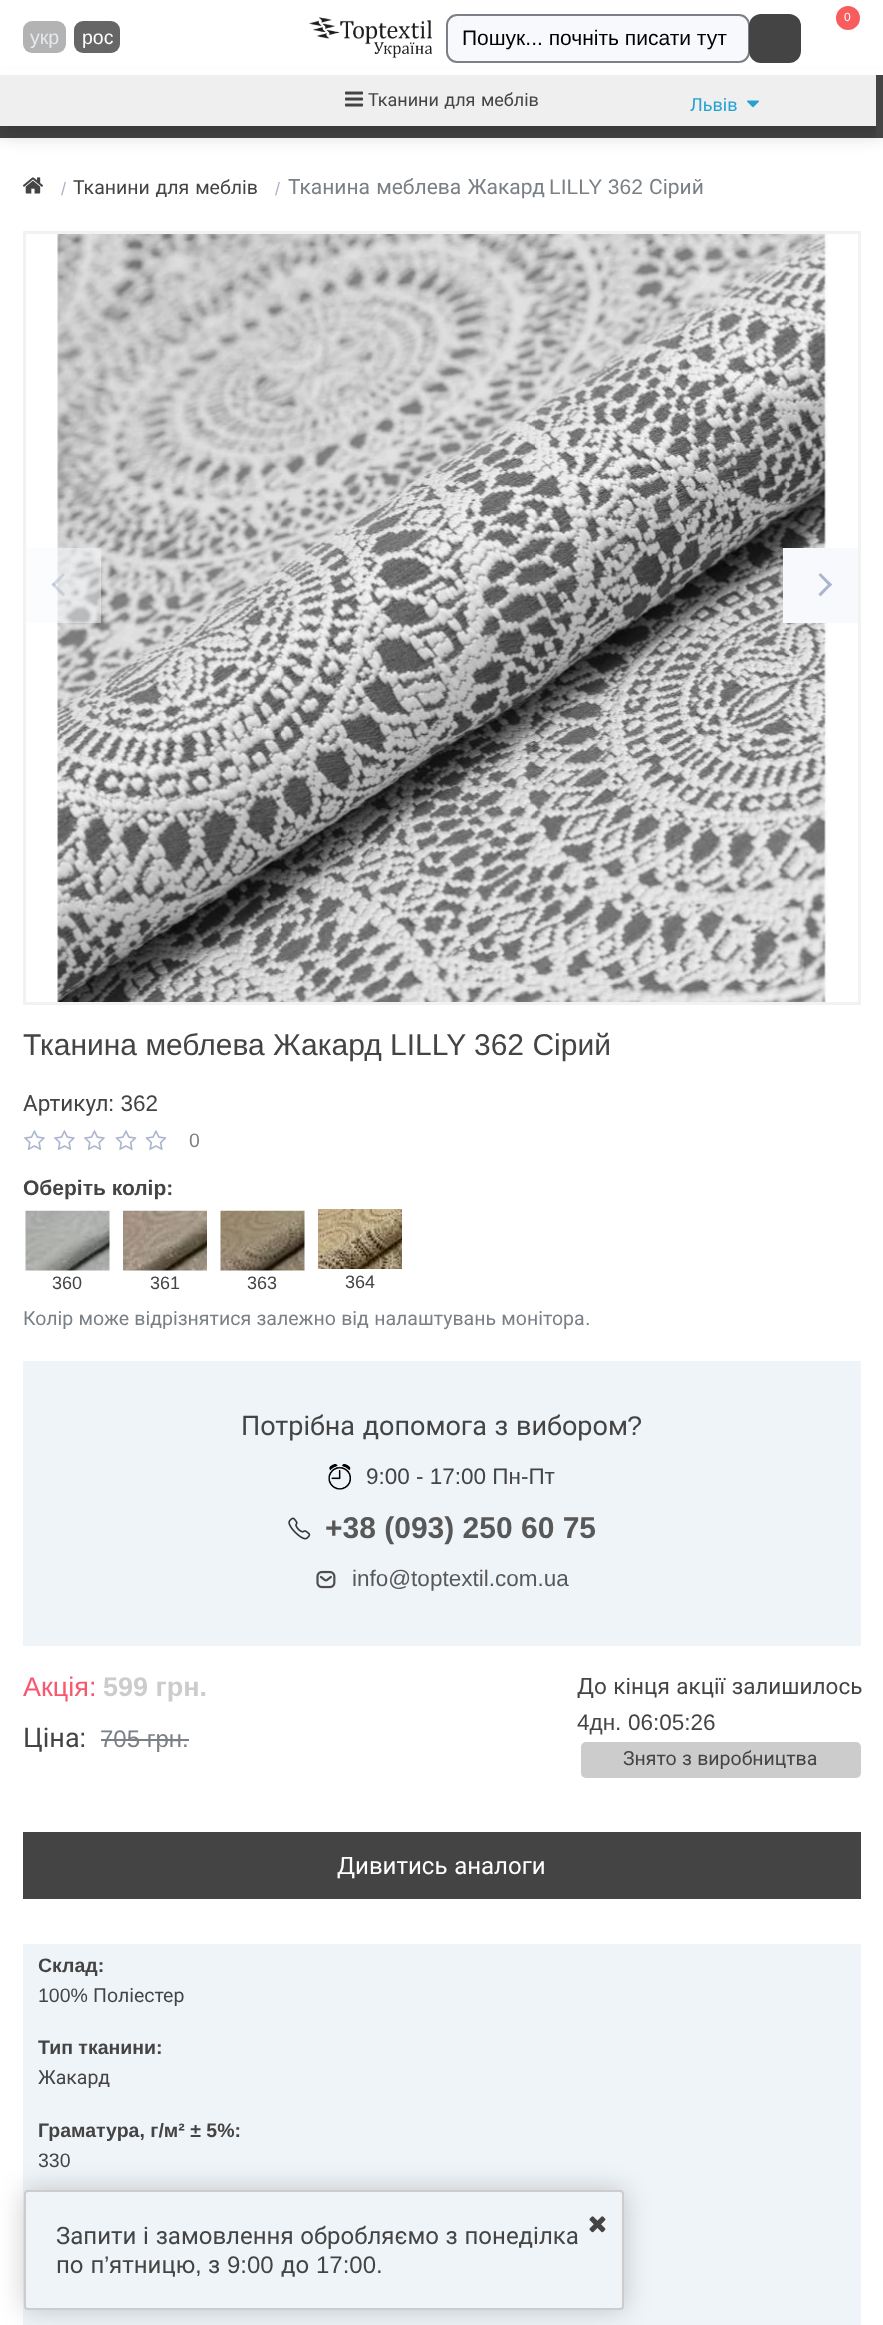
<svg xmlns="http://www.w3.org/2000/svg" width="883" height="2325">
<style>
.a{font:19.5px Liberation Sans;fill:#e4e9ed}
.b{font:19.5px Liberation Sans;fill:#fff}
.c{font:12px Liberation Sans;fill:#fff}
.d{font:21px Liberation Sans;fill:#000}
.e{font:18px Roboto;fill:#444}
.f{font:18px Roboto;fill:#23a1d1}
.g{font:18px Liberation Sans;fill:#abb5cd}
.h{font:19.5px Roboto;fill:#444}
.i{font:21px Roboto;fill:#7a8085}
.j{font:21px Liberation Sans;fill:#7a8085}
.k{font:30px Liberation Sans;fill:#444}
.l{font:22.5px Roboto;fill:#444}
.m{font:22.5px Liberation Sans;fill:#444}
.n{font:19.5px Liberation Sans;fill:#7a8085}
.o{font:bold 21px Liberation Sans;fill:#444}
.p{font:18px Liberation Sans;fill:#444}
.q{font:19.5px Roboto;fill:#7a8085}
.r{font:27px Roboto;fill:#444}
.s{font:27px Liberation Sans;fill:#444}
.t{font:bold 30px Liberation Sans;fill:#585858}
.u{font:22.5px Liberation Sans;fill:#585858}
.v{font:27px Liberation Sans;fill:#f8576d}
.w{font:bold 27px Liberation Sans;fill:#ccc}
.x{font:24px Liberation Sans;fill:#7a8085}
.y{font:24px Roboto;fill:#fff}
.z{font:bold 19.5px Liberation Sans;fill:#444}
.a1{font:19.5px Liberation Sans;fill:#444}
.b1{font:24px Roboto;fill:#444}
.c1{font:24px Liberation Sans;fill:#444}
</style>
<rect width="100%" height="100%" fill="#fff"/>
<rect fill="#b3b3b3" x="23" y="21" width="43" height="32" rx="9"/>
<rect fill="#666" x="74" y="21" width="46" height="32" rx="9"/>
<path fill="#444" d="M0 126h876v12H0z"/>
<path fill="#0000002e" filter="blur(9px)" d="M0 84h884v51H0z"/>
<path fill="#fff" d="M0 70h883v5H0z"/>
<image href="1.png" x="309" y="17" width="124" height="41"/>
<circle fill="#f95c5c" stroke="#fff" stroke-width="3" cx="848" cy="18" r="13.5"/>
<rect fill="#f8f9fc" stroke="#7a8085" stroke-width="2" x="447" y="15" width="302" height="47" rx="10"/>
<rect fill="#444" x="749" y="14" width="52" height="49" rx="12"/>
<path fill="#efefef" d="M0 75h876v51H0z"/>
<image href="2.png" x="345" y="91" width="18" height="16"/>
<image href="3.png" x="747" y="100" width="12" height="8"/>
<path fill="#444" d="M876 75h7v63H876z"/>
<image href="4.png" x="23" y="177" width="20" height="17"/>
<path fill="none" stroke="#f2f2f2" stroke-width="3" d="M24.5 232.5h835v771H24.5z"/>
<image href="5.png" x="57" y="234" width="771" height="768"/>
<path fill="#f8f9fc80" d="M26 548h75v75H26z"/>
<path fill="#abb5cd80" d="M53.5 582.5l11.5 11.5l-2 2.5l-11.5-12z"/>
<path fill="#abb5cd80" d="M63 573l2 2l-11.5 12l-2-2.5z"/>
<path fill="#f8f9fc" d="M783 548h75v75H783z"/>
<path fill="#abb5cd" d="M830 587l-11.5-12l2-2l11.5 11.5z"/>
<path fill="#abb5cd" d="M820.5 596.5l-2-2.5l11.5-11.5l2 2z"/>
<image href="6.png" x="24" y="1130" width="21" height="20"/>
<image href="6.png" x="54" y="1130" width="21" height="20"/>
<image href="6.png" x="84" y="1130" width="21" height="20"/>
<image href="7.png" x="115" y="1130" width="22" height="20"/>
<image href="7.png" x="145" y="1130" width="22" height="20"/>
<image href="8.png" x="25" y="1210" width="85" height="61"/>
<image href="9.png" x="123" y="1210" width="84" height="61"/>
<image href="10.png" x="220" y="1210" width="85" height="61"/>
<image href="11.png" x="318" y="1209" width="84" height="60"/>
<path fill="#eff4f8" d="M23 1361h838v285H23z"/>
<image href="12.png" x="328" y="1464" width="23" height="26"/>
<image href="13.png" x="288" y="1517" width="23" height="23"/>
<image href="14.png" x="316" y="1570" width="20" height="19"/>
<path fill="#7a8085" d="M101 1739h88v2H101z"/>
<rect fill="#ccc" x="581" y="1742" width="280" height="36" rx="5"/>
<path fill="#444" d="M23 1832h838v67H23z"/>
<path fill="#eff4f8" d="M23 1944h838v381H23z"/>
<rect fill="#00000033" filter="blur(13.5px)" x="24" y="2190" width="600" height="120" rx="4"/>
<rect fill="#eff4f8" stroke="#ccc" stroke-width="2" x="25" y="2191" width="598" height="118" rx="3"/>
<image href="15.png" x="589" y="2216" width="17" height="17"/>
<text class="a" x="30" y="44">укр</text>
<text class="b" x="82" y="44">рос</text>
<text class="c" x="844" y="21">0</text>
<text class="d" x="462" y="45">Пошук... почніть писати тут</text>
<text class="e" x="368" y="106" word-spacing="1">Тканини для меблів</text>
<text class="f" x="690" y="111">Львів</text>
<text class="g" x="61" y="195">/</text>
<text class="h" x="73" y="194" word-spacing="1">Тканини для меблів</text>
<text class="g" x="275" y="195">/</text>
<text class="i" x="288" y="194" word-spacing="1">Тканина меблева Жакард</text>
<text class="j" x="549" y="194">LILLY 362</text>
<text class="i" x="649" y="194">Сірий</text>
<text class="k" x="23" y="1055">Тканина меблева Жакард LILLY 362 Сірий</text>
<text class="l" x="23" y="1111">Артикул</text>
<text class="m" x="108" y="1111">: 362</text>
<text class="n" x="189" y="1147">0</text>
<text class="o" x="23" y="1195">Оберіть колір:</text>
<text class="p" x="52" y="1289">360</text>
<text class="p" x="150" y="1289">361</text>
<text class="p" x="247" y="1289">363</text>
<text class="p" x="345" y="1288">364</text>
<text class="q" x="23" y="1325" word-spacing="0.5">Колір може відрізнятися залежно від налаштувань монітора</text>
<text class="n" x="585" y="1325">.</text>
<text class="r" x="241" y="1435" word-spacing="1">Потрібна допомога з вибором</text>
<text class="s" x="627" y="1435">?</text>
<text class="m" x="366" y="1484">9:00 - 17:00 Пн-Пт</text>
<text class="t" x="325" y="1538">+38 (093) 250 60 75</text>
<text class="u" x="352" y="1586">info@toptextil.com.ua</text>
<text class="v" x="23" y="1696">Акція:</text>
<text class="w" x="103" y="1696">599 грн.</text>
<text class="r" x="23" y="1747">Ціна</text>
<text class="s" x="79" y="1747">:</text>
<text class="x" x="100" y="1747">705 грн.</text>
<text class="l" x="577" y="1694" word-spacing="1">До кінця акції залишилось</text>
<text class="m" x="577" y="1730">4дн.</text>
<text class="m" x="628" y="1730">06:05:26</text>
<text class="h" x="623" y="1765" word-spacing="0.5">Знято з виробництва</text>
<text class="y" x="337" y="1874" word-spacing="0.75">Дивитись аналоги</text>
<text class="z" x="38" y="1972">Склад:</text>
<text class="a1" x="38" y="2002">100%</text>
<text class="h" x="93" y="2002">Поліестер</text>
<text class="z" x="38" y="2054">Тип тканини:</text>
<text class="h" x="38" y="2084">Жакард</text>
<text class="z" x="38" y="2137">Граматура, г/м² ± 5%:</text>
<text class="a1" x="38" y="2167">330</text>
<text class="b1" x="56" y="2244" word-spacing="0.75">Запити і замовлення обробляємо з понеділка</text>
<text class="b1" x="56" y="2273" word-spacing="1">по п</text>
<text class="c1" x="104" y="2273">’</text>
<text class="b1" x="109" y="2273">ятницю</text>
<text class="c1" x="195" y="2273">,</text>
<text class="b1" x="208" y="2273">з</text>
<text class="c1" x="227" y="2273">9:00</text>
<text class="b1" x="281" y="2273">до</text>
<text class="c1" x="316" y="2273">17:00.</text>
</svg>
